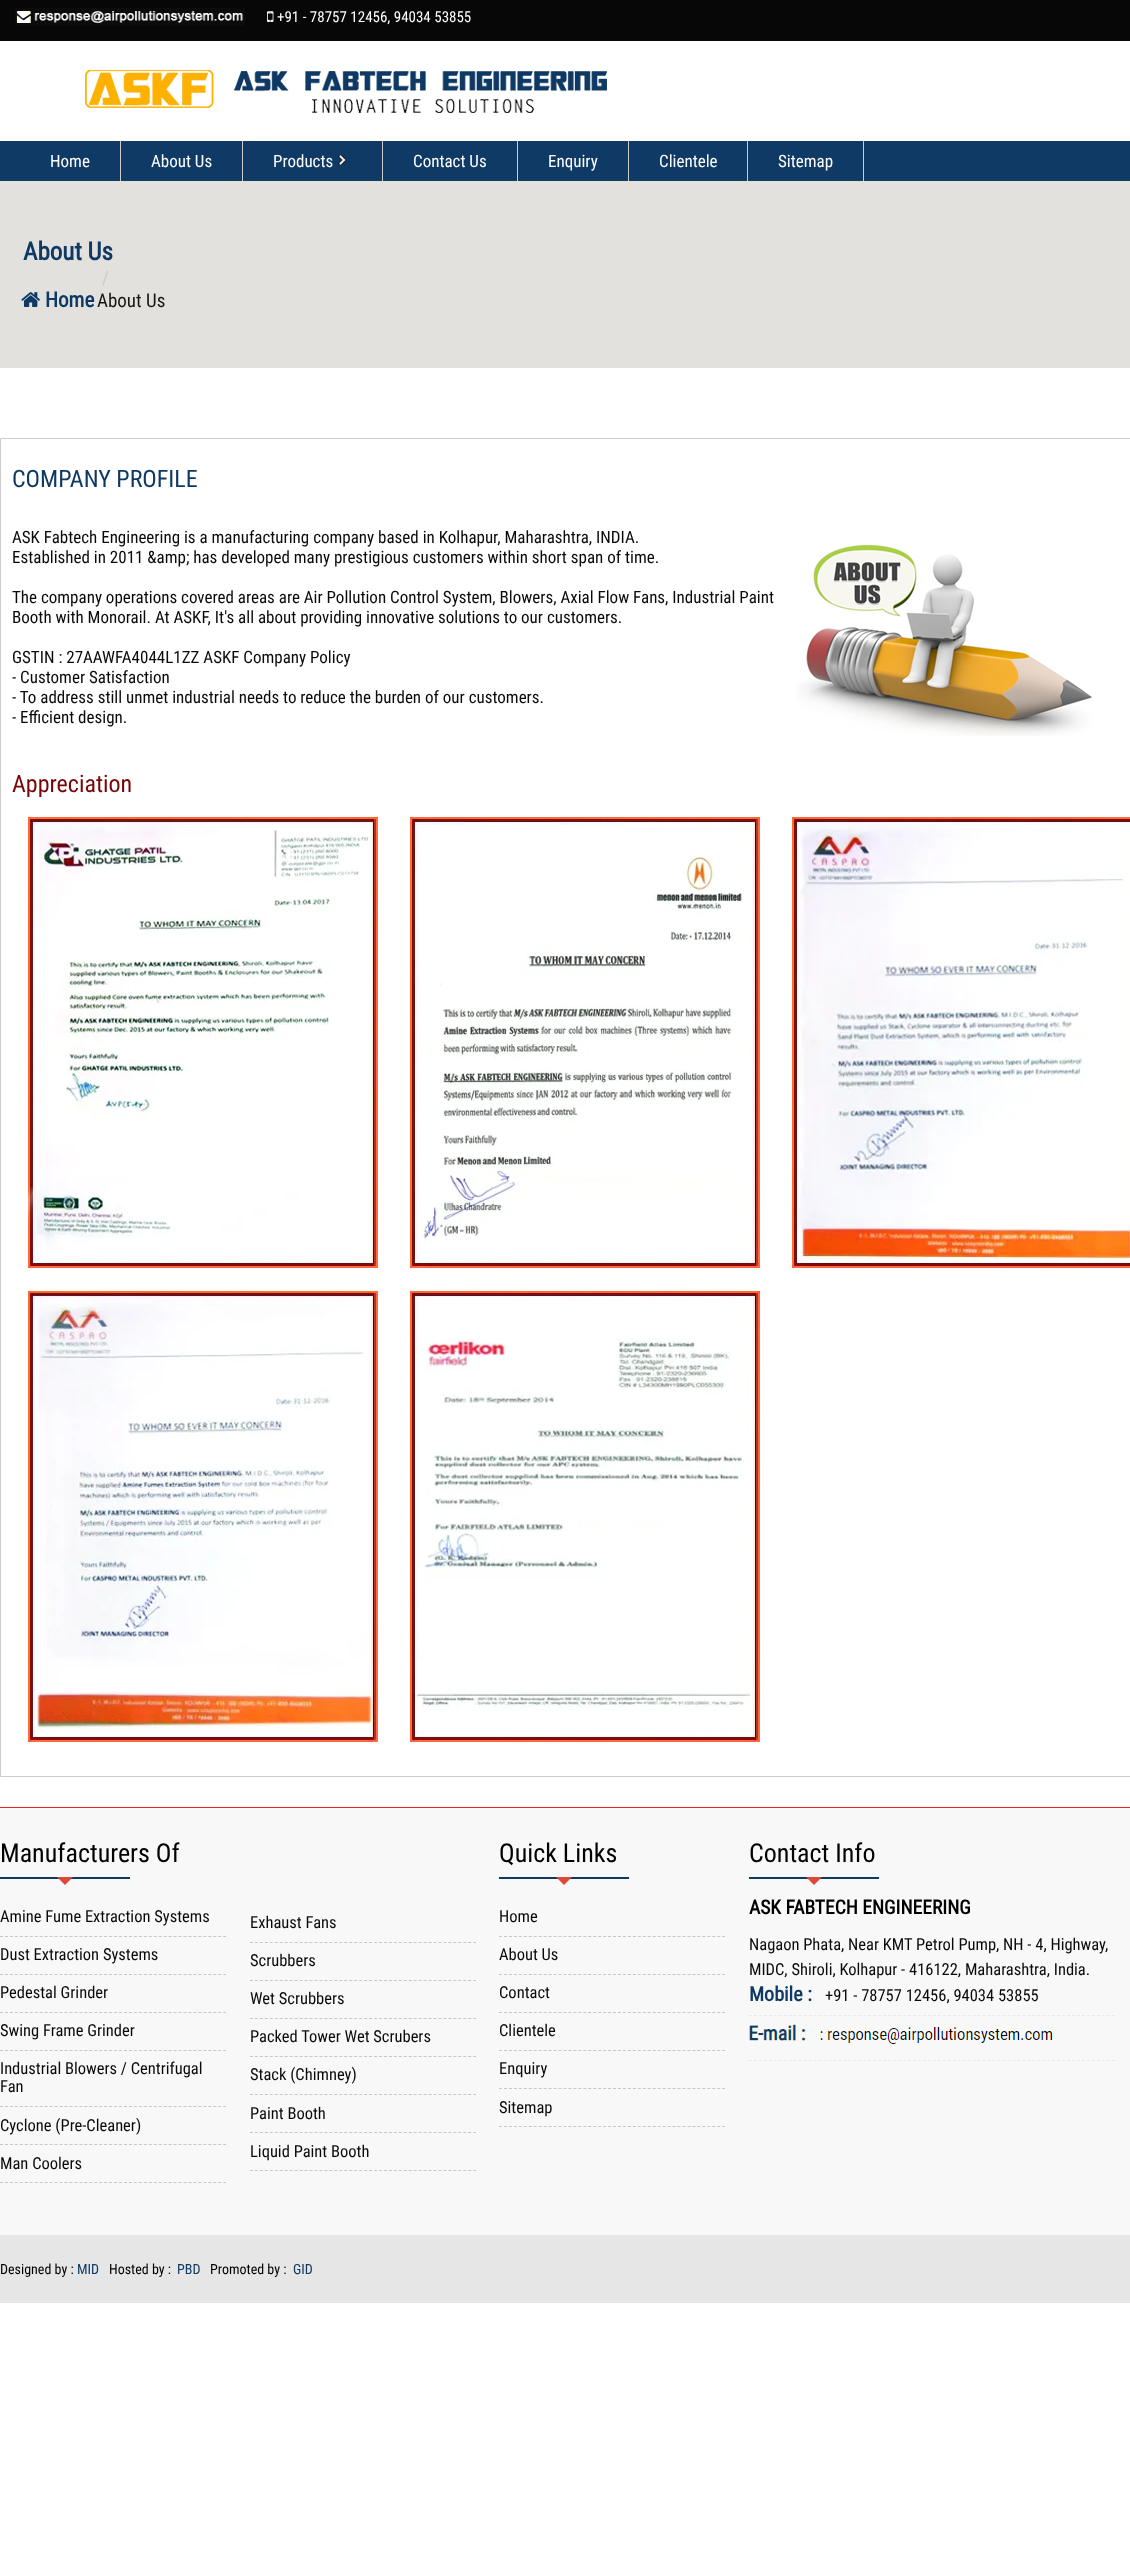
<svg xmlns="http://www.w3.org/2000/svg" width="1130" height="2552">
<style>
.a{font:15px Roboto Condensed;fill:#fff}
.b{font:17px Roboto Condensed;fill:#fff}
.c{font:bold 25px Roboto Condensed;fill:#0e3964}
.d{font:bold 21px Roboto Condensed;fill:#0e3964}
.e{font:19px Roboto Condensed;fill:#ccc}
.f{font:19px Roboto Condensed;fill:#181717}
.g{font:24px Roboto Condensed;fill:#0e3964}
.h{font:17px Roboto Condensed;fill:#0b0a0a}
.i{font:24px Roboto Condensed;fill:#780406}
.j{font:26px Roboto Condensed;fill:#000}
.k{font:16.5px Roboto Condensed;fill:#0b0a0a}
.l{font:bold 19.5px Roboto Condensed;fill:#000}
.m{font:bold 20px Roboto Condensed;fill:#0e3964}
.n{font:14px Roboto Condensed;fill:#000}
.o{font:14px Roboto Condensed;fill:#0e3964}
</style>
<rect width="100%" height="100%" fill="#fff"/>
<path fill="#070707" d="M0 0h1130v41H0z"/>
<image href="1.png" x="15" y="8" width="230" height="18"/>
<image href="2.png" x="267" y="11" width="7" height="11"/>
<image href="3.png" x="85" y="68" width="526" height="45"/>
<path fill="#0f3a65" d="M0 141h1130v40H0z"/>
<path fill="#ccc" d="M120 141h1v40H120z"/>
<path fill="#ccc" d="M242 141h1v40H242z"/>
<path fill="#ccc" d="M382 141h1v40H382z"/>
<image href="4.png" x="338" y="155" width="9" height="10"/>
<path fill="#ccc" d="M517 141h1v40H517z"/>
<path fill="#ccc" d="M628 141h1v40H628z"/>
<path fill="#ccc" d="M747 141h1v40H747z"/>
<path fill="#ccc" d="M863 141h1v40H863z"/>
<path fill="#e2e1de" d="M0 181h1130v187H0z"/>
<image href="5.png" x="21" y="292" width="19" height="15"/>
<path fill="none" stroke="#cfcaca" d="M0.5 438.5h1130v1338H0.5z"/>
<image href="6.png" x="796" y="544" width="296" height="192"/>
<image href="7.png" x="28" y="817" width="350" height="451"/>
<image href="8.png" x="410" y="817" width="350" height="451"/>
<image href="9.png" x="792" y="817" width="338" height="451"/>
<image href="10.png" x="28" y="1291" width="350" height="451"/>
<image href="11.png" x="410" y="1291" width="350" height="451"/>
<path fill="#f8f8f8" d="M0 1808h1130v427H0z"/>
<path fill="#ed1e24" d="M0 1807h1130v1H0z"/>
<path fill="#0e3963" d="M0 1877h130v2H0z"/>
<path fill="#dc483a" d="M57 1877h16l-8 8z"/>
<path fill="none" stroke="#c7c7c7" stroke-dasharray="3 1.96" d="M0 1936.5h226"/>
<path fill="none" stroke="#c7c7c7" stroke-dasharray="3 1.96" d="M0 1974.5h226"/>
<path fill="none" stroke="#c7c7c7" stroke-dasharray="3 1.96" d="M0 2012.5h226"/>
<path fill="none" stroke="#c7c7c7" stroke-dasharray="3 1.96" d="M0 2050.5h226"/>
<path fill="none" stroke="#c7c7c7" stroke-dasharray="3 1.96" d="M0 2106.5h226"/>
<path fill="none" stroke="#c7c7c7" stroke-dasharray="3 1.96" d="M0 2144.5h226"/>
<path fill="none" stroke="#c7c7c7" stroke-dasharray="3 1.96" d="M0 2182.5h226"/>
<path fill="none" stroke="#c7c7c7" stroke-dasharray="3 1.96" d="M250 1942.5h226"/>
<path fill="none" stroke="#c7c7c7" stroke-dasharray="3 1.96" d="M250 1980.5h226"/>
<path fill="none" stroke="#c7c7c7" stroke-dasharray="3 1.96" d="M250 2018.5h226"/>
<path fill="none" stroke="#c7c7c7" stroke-dasharray="3 1.96" d="M250 2056.5h226"/>
<path fill="none" stroke="#c7c7c7" stroke-dasharray="3 1.96" d="M250 2094.5h226"/>
<path fill="none" stroke="#c7c7c7" stroke-dasharray="3 1.96" d="M250 2132.5h226"/>
<path fill="none" stroke="#c7c7c7" stroke-dasharray="3 1.96" d="M250 2170.5h226"/>
<path fill="#0e3963" d="M499 1877h130v2H499z"/>
<path fill="#dc483a" d="M556 1877h16l-8 8z"/>
<path fill="none" stroke="#c7c7c7" stroke-dasharray="3 1.96" d="M499 1936.5h226"/>
<path fill="none" stroke="#c7c7c7" stroke-dasharray="3 1.96" d="M499 1974.5h226"/>
<path fill="none" stroke="#c7c7c7" stroke-dasharray="3 1.96" d="M499 2012.5h226"/>
<path fill="none" stroke="#c7c7c7" stroke-dasharray="3 1.96" d="M499 2050.5h226"/>
<path fill="none" stroke="#c7c7c7" stroke-dasharray="3 1.96" d="M499 2088.5h226"/>
<path fill="none" stroke="#c7c7c7" stroke-dasharray="3 1.96" d="M499 2126.5h226"/>
<path fill="#0e3963" d="M749 1877h130v2H749z"/>
<path fill="#dc483a" d="M806 1877h16l-8 8z"/>
<path fill="none" stroke="#e9e9e9" stroke-dasharray="3 1.97" d="M749 2015.5h366"/>
<path fill="none" stroke="#e9e9e9" stroke-dasharray="3 1.97" d="M749 2060.5h366"/>
<image href="12.png" x="749" y="2024" width="304" height="22"/>
<path fill="#e6e6e6" d="M0 2235h1130v68H0z"/>
<text class="a" x="277" y="22">+91 - 78757 12456, 94034 53855</text>
<text class="b" x="50" y="167">Home</text>
<text class="b" x="151" y="167">About Us</text>
<text class="b" x="273" y="167">Products</text>
<text class="b" x="413" y="167">Contact Us</text>
<text class="b" x="548" y="167">Enquiry</text>
<text class="b" x="659" y="167">Clientele</text>
<text class="b" x="778" y="167">Sitemap</text>
<text class="c" x="23" y="260">About Us</text>
<text class="d" x="45" y="307">Home</text>
<text class="e" x="102" y="284">/</text>
<text class="f" x="97" y="307">About Us</text>
<text class="g" x="12" y="487">COMPANY PROFILE</text>
<text class="h" x="12" y="543">ASK Fabtech Engineering is a manufacturing company based in Kolhapur, Maharashtra, INDIA.</text>
<text class="h" x="12" y="563">Established in 2011 &amp;amp; has developed many prestigious customers within short span of time.</text>
<text class="h" x="12" y="603">The company operations covered areas are Air Pollution Control System, Blowers, Axial Flow Fans, Industrial Paint</text>
<text class="h" x="12" y="623">Booth with Monorail. At ASKF, It's all about providing innovative solutions to our customers.</text>
<text class="h" x="12" y="663">GSTIN : 27AAWFA4044L1ZZ ASKF Company Policy</text>
<text class="h" x="12" y="683">- Customer Satisfaction</text>
<text class="h" x="12" y="703">- To address still unmet industrial needs to reduce the burden of our customers.</text>
<text class="h" x="12" y="723">- Efficient design.</text>
<text class="i" x="12" y="792">Appreciation</text>
<text class="j" x="0" y="1862">Manufacturers Of</text>
<text class="k" x="0" y="1922">Amine Fume Extraction Systems</text>
<text class="k" x="0" y="1960">Dust Extraction Systems</text>
<text class="k" x="0" y="1998">Pedestal Grinder</text>
<text class="k" x="0" y="2036">Swing Frame Grinder</text>
<text class="k" x="0" y="2074">Industrial Blowers / Centrifugal</text>
<text class="k" x="0" y="2092">Fan</text>
<text class="k" x="0" y="2131">Cyclone (Pre-Cleaner)</text>
<text class="k" x="0" y="2169">Man Coolers</text>
<text class="k" x="250" y="1928">Exhaust Fans</text>
<text class="k" x="250" y="1966">Scrubbers</text>
<text class="k" x="250" y="2004">Wet Scrubbers</text>
<text class="k" x="250" y="2042">Packed Tower Wet Scrubers</text>
<text class="k" x="250" y="2080">Stack (Chimney)</text>
<text class="k" x="250" y="2119">Paint Booth</text>
<text class="k" x="250" y="2157">Liquid Paint Booth</text>
<text class="j" x="499" y="1862">Quick Links</text>
<text class="k" x="499" y="1922">Home</text>
<text class="k" x="499" y="1960">About Us</text>
<text class="k" x="499" y="1998">Contact</text>
<text class="k" x="499" y="2036">Clientele</text>
<text class="k" x="499" y="2074">Enquiry</text>
<text class="k" x="499" y="2113">Sitemap</text>
<text class="j" x="749" y="1862">Contact Info</text>
<text class="l" x="749" y="1914">ASK FABTECH ENGINEERING</text>
<text class="k" x="749" y="1950">Nagaon Phata, Near KMT Petrol Pump, NH - 4, Highway,</text>
<text class="k" x="749" y="1975">MIDC, Shiroli, Kolhapur - 416122, Maharashtra, India.</text>
<text class="m" x="749" y="2001">Mobile :</text>
<text class="k" x="825" y="2001">+91 - 78757 12456, 94034 53855</text>
<text class="n" x="0" y="2274">Designed by :</text>
<text class="o" x="77" y="2274">MID</text>
<text class="n" x="109" y="2274">Hosted by :</text>
<text class="o" x="177" y="2274">PBD</text>
<text class="n" x="210" y="2274">Promoted by :</text>
<text class="o" x="293" y="2274">GID</text>
</svg>
